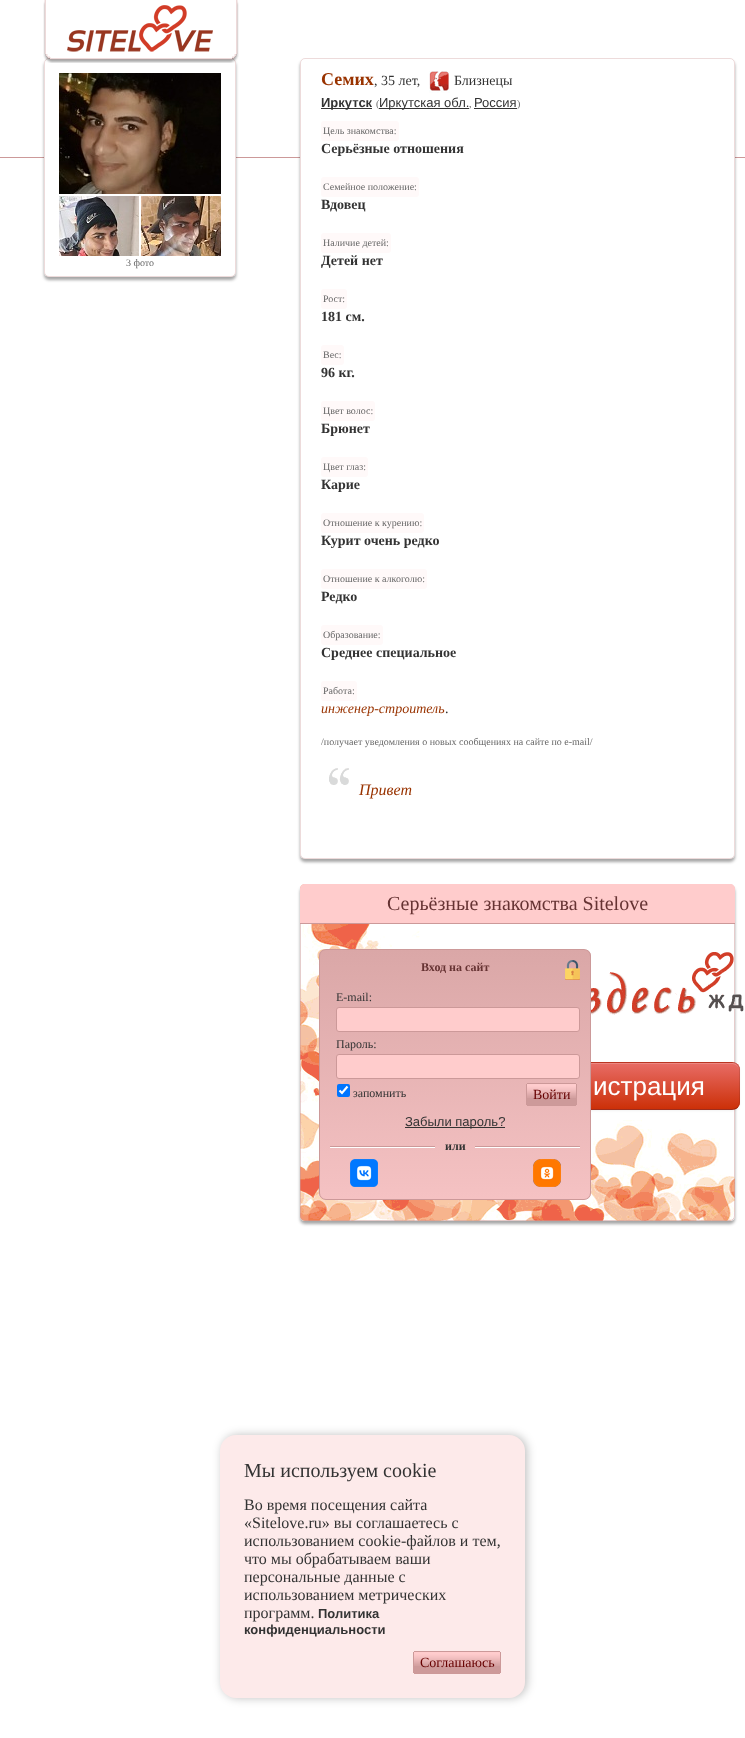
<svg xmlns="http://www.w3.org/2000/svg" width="745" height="1738">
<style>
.a{font:10px Liberation Serif;fill:#666}
.b{font:bold 18px Liberation Serif;fill:#930}
.c{font:14px Liberation Serif;fill:#333}
.d{font:bold 13px Liberation Sans;fill:#333}
.e{font:13px Liberation Sans;fill:#333}
.f{font:bold 14px Liberation Serif;fill:#333}
.g{font:italic 14px Liberation Serif;fill:#930}
.h{font:italic 16px Liberation Serif;fill:#930}
.i{font:20px Liberation Serif;fill:#333}
.j{font:16px Liberation Serif;fill:#333}
.k{font:14px Liberation Serif;fill:#600}
.l{font:20px Liberation Serif;fill:#633}
.m{font:bold 12px Liberation Serif;fill:#633}
.n{font:12px Liberation Serif;fill:#333}
.o{font:bold 12px Liberation Serif;fill:#333}
.p{font:26px Liberation Sans;fill:#fff}
</style>
<defs>
<clipPath id="clip1"><path d="M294 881h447v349h-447zm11 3h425c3 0 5 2 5 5v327c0 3-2 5-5 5h-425c-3 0-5-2-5-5v-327c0-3 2-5 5-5z" clip-rule="evenodd"/></clipPath>
<clipPath id="clip2"><rect x="518" y="1062" width="222" height="48" rx="8"/></clipPath>
<linearGradient id="g1" gradientUnits="userSpaceOnUse" x1="629" y1="1063" x2="629" y2="1109"><stop offset="0" stop-color="#e86c66"/><stop offset="1" stop-color="#cc3008"/></linearGradient>
<clipPath id="clip3"><rect x="319" y="949" width="272" height="251" rx="7"/></clipPath>
<linearGradient id="g2" gradientUnits="userSpaceOnUse" x1="455" y1="950" x2="455" y2="1199"><stop offset="0" stop-color="#daa7a7"/><stop offset="1" stop-color="#f5c2c3"/></linearGradient>
</defs>
<rect width="100%" height="100%" fill="#fff"/>
<path fill="#c99" d="M0 157h745v1H0z"/>
<rect fill="#00000059" filter="blur(1.5px)" x="44" y="61" width="192" height="219" rx="5"/>
<rect fill="#fff" x="44" y="58" width="192" height="219" rx="5"/>
<rect fill="none" stroke="#cc999959" x="44.5" y="58.5" width="191" height="218" rx="4.5"/>
<image href="1.png" x="43" y="0" width="196" height="63"/>
<image href="2.png" x="59" y="73" width="162" height="121"/>
<image href="3.png" x="59" y="196" width="80" height="60"/>
<image href="4.png" x="141" y="196" width="80" height="60"/>
<rect fill="#00000059" filter="blur(1.5px)" x="300" y="61" width="435" height="801" rx="5"/>
<rect fill="#fff" x="300" y="58" width="435" height="801" rx="5"/>
<rect fill="none" stroke="#cc999959" x="300.5" y="58.5" width="434" height="800" rx="4.5"/>
<image href="5.png" x="429" y="71" width="21" height="22"/>
<path fill="#333" d="M321 108h51v1H321z"/>
<path fill="#333" d="M379 108h90v1H379z"/>
<path fill="#333" d="M474 108h43v1H474z"/>
<rect fill="#fff9f9" x="321" y="121" width="78" height="20" rx="3"/>
<rect fill="#fff9f9" x="321" y="177" width="98" height="20" rx="3"/>
<rect fill="#fff9f9" x="321" y="233" width="70" height="20" rx="3"/>
<rect fill="#fff9f9" x="321" y="289" width="26" height="20" rx="3"/>
<rect fill="#fff9f9" x="321" y="345" width="23" height="20" rx="3"/>
<rect fill="#fff9f9" x="321" y="401" width="54" height="20" rx="3"/>
<rect fill="#fff9f9" x="321" y="457" width="47" height="20" rx="3"/>
<rect fill="#fff9f9" x="321" y="513" width="103" height="20" rx="3"/>
<rect fill="#fff9f9" x="321" y="569" width="106" height="20" rx="3"/>
<rect fill="#fff9f9" x="321" y="625" width="62" height="20" rx="3"/>
<rect fill="#fff9f9" x="321" y="681" width="36" height="20" rx="3"/>
<image href="6.png" x="329" y="768" width="20" height="17"/>
<rect fill="#00000040" filter="blur(5px)" x="222" y="1435" width="305" height="263" rx="16"/>
<rect fill="#fdeaea" x="220" y="1435" width="305" height="263" rx="16"/>
<image href="7.png" x="414" y="1651" width="86" height="15"/>
<path fill="#c99" d="M500 1652h1v21H500z"/>
<path fill="#c99" d="M413 1652h1v21H413z"/>
<path fill="#cd9a9a" d="M414 1666h86v7H414z"/>
<path fill="#c99" d="M414 1673h86v1H414z"/>
<image href="8.png" x="300" y="884" width="435" height="337"/>
<g clip-path="url(#clip1)">
<rect fill="#00000059" filter="blur(1.5px)" x="300" y="887" width="435" height="337" rx="5"/>
</g>
<rect fill="none" stroke="#cc999980" x="300.5" y="884.5" width="434" height="336" rx="4.5"/>
<path fill="#fcc" d="M305 884h425c3 0 5 2 5 5v35h-435v-35c0-3 2-5 5-5z"/>
<path fill="#c99" d="M300 923h435v1H300z"/>
<rect fill="#0000000d" filter="blur(1px)" x="518" y="1063" width="222" height="48" rx="8"/>
<rect fill="#d13d27" x="518" y="1062" width="222" height="48" rx="8"/>
<g clip-path="url(#clip2)">
<path fill="url(#g1)" d="M591 1063h149v46H591z"/>
</g>
<path fill="#ffffff33" d="M526 1064h206c4 0 7 3 7 7c0-4-2-7-6-8h-207c-5 0-7 4-7 8c0-4 3-7 7-7z"/>
<path fill="none" stroke="#00000040" d="M737.5 1107.5c-1.5 1-3.5 2-5.5 2h-206c-2 0-4-1-5.5-2"/>
<path fill="none" stroke="#0000001a" d="M520.5 1107.5c-1-1.5-2-3.5-2-5.5v-32c0-2 1-4 2-5.5c1.5-1 3.5-2 5.5-2h206c2 0 4 1 5.5 2c1 1.5 2 3.5 2 5.5v32c0 2-1 4-2 5.5"/>
<g clip-path="url(#clip3)">
<path fill="url(#g2)" d="M319 950h272v249H319z"/>
</g>
<rect fill="none" stroke="#c99" x="319.5" y="949.5" width="271" height="250" rx="6.5"/>
<image href="9.png" x="565" y="960" width="15" height="20"/>
<rect fill="#fcc" stroke="#c99" x="336.5" y="1007.5" width="243" height="24" rx="2.5"/>
<rect fill="#fcc" stroke="#c99" x="336.5" y="1054.5" width="243" height="24" rx="2.5"/>
<rect fill="#0075ff" x="337" y="1084" width="13" height="13" rx="2"/>
<path fill="none" stroke="#fff" stroke-width="2.1" d="M339.5 1090.5l2.5 2.5l5.5-6.5"/>
<image href="10.png" x="527" y="1083" width="49" height="15"/>
<path fill="#c99" d="M576 1084h1v21H576z"/>
<path fill="#c99" d="M526 1084h1v21H526z"/>
<path fill="#cd9a9a" d="M527 1098h49v7H527z"/>
<path fill="#c99" d="M527 1105h49v1H527z"/>
<path fill="#333" d="M405 1127h100v1H405z"/>
<path fill="#c99" d="M330 1146h105v1H330z"/>
<path fill="#fff" d="M330 1147h105v1H330z"/>
<path fill="#c99" d="M475 1146h105v1H475z"/>
<path fill="#fff" d="M475 1147h105v1H475z"/>
<image href="11.png" x="350" y="1159" width="28" height="28"/>
<image href="12.png" x="533" y="1159" width="28" height="28"/>
<image href="13.png" x="591" y="952" width="153" height="63"/>
<text class="a" x="126" y="266">3 фото</text>
<text class="b" x="321" y="85">Семих</text>
<text class="c" x="374" y="85">, 35 лет,</text>
<text class="c" x="454" y="85">Близнецы</text>
<text class="d" x="321" y="107">Иркутск</text>
<text class="a" x="376" y="107">(</text>
<text class="e" x="379" y="107">Иркутская обл.</text>
<text class="a" x="469" y="107">,</text>
<text class="e" x="474" y="107">Россия</text>
<text class="a" x="517" y="107">)</text>
<text class="a" x="323" y="134">Цель знакомства:</text>
<text class="f" x="321" y="153">Серьёзные отношения</text>
<text class="a" x="323" y="190">Семейное положение:</text>
<text class="f" x="321" y="209">Вдовец</text>
<text class="a" x="323" y="246">Наличие детей:</text>
<text class="f" x="321" y="265">Детей нет</text>
<text class="a" x="323" y="302">Рост:</text>
<text class="f" x="321" y="321">181 см.</text>
<text class="a" x="323" y="358">Вес:</text>
<text class="f" x="321" y="377">96 кг.</text>
<text class="a" x="323" y="414">Цвет волос:</text>
<text class="f" x="321" y="433">Брюнет</text>
<text class="a" x="323" y="470">Цвет глаз:</text>
<text class="f" x="321" y="489">Карие</text>
<text class="a" x="323" y="526">Отношение к курению:</text>
<text class="f" x="321" y="545">Курит очень редко</text>
<text class="a" x="323" y="582">Отношение к алкоголю:</text>
<text class="f" x="321" y="601">Редко</text>
<text class="a" x="323" y="638">Образование:</text>
<text class="f" x="321" y="657">Среднее специальное</text>
<text class="a" x="323" y="694">Работа:</text>
<text class="g" x="321" y="713">инженер-строитель</text>
<text class="c" x="445" y="713">.</text>
<text class="a" x="321" y="745">/получает уведомления о новых сообщениях на сайте по e-mail/</text>
<text class="h" x="359" y="795">Привет</text>
<text class="i" x="244" y="1477">Мы используем сookie</text>
<text class="j" x="244" y="1510">Во время посещения сайта</text>
<text class="j" x="244" y="1528">«Sitelove.ru» вы соглашаетесь с</text>
<text class="j" x="244" y="1546">использованием cookie-файлов и тем,</text>
<text class="j" x="244" y="1564">что мы обрабатываем ваши</text>
<text class="j" x="244" y="1582">персональные данные с</text>
<text class="j" x="244" y="1600">использованием метрических</text>
<text class="j" x="244" y="1618">программ.</text>
<text class="d" x="318" y="1618">Политика</text>
<text class="d" x="244" y="1634">конфиденциальности</text>
<text class="k" x="420" y="1667">Соглашаюсь</text>
<text class="l" x="387" y="910">Серьёзные знакомства Sitelove</text>
<text class="m" x="421" y="971">Вход на сайт</text>
<text class="n" x="336" y="1001">E-mail:</text>
<text class="n" x="336" y="1048">Пароль:</text>
<text class="n" x="353" y="1097">запомнить</text>
<text class="k" x="533" y="1099">Войти</text>
<text class="e" x="405" y="1126">Забыли пароль?</text>
<text class="o" x="445" y="1150">или</text>
<text class="p" x="593" y="1095">истрация</text>
</svg>
